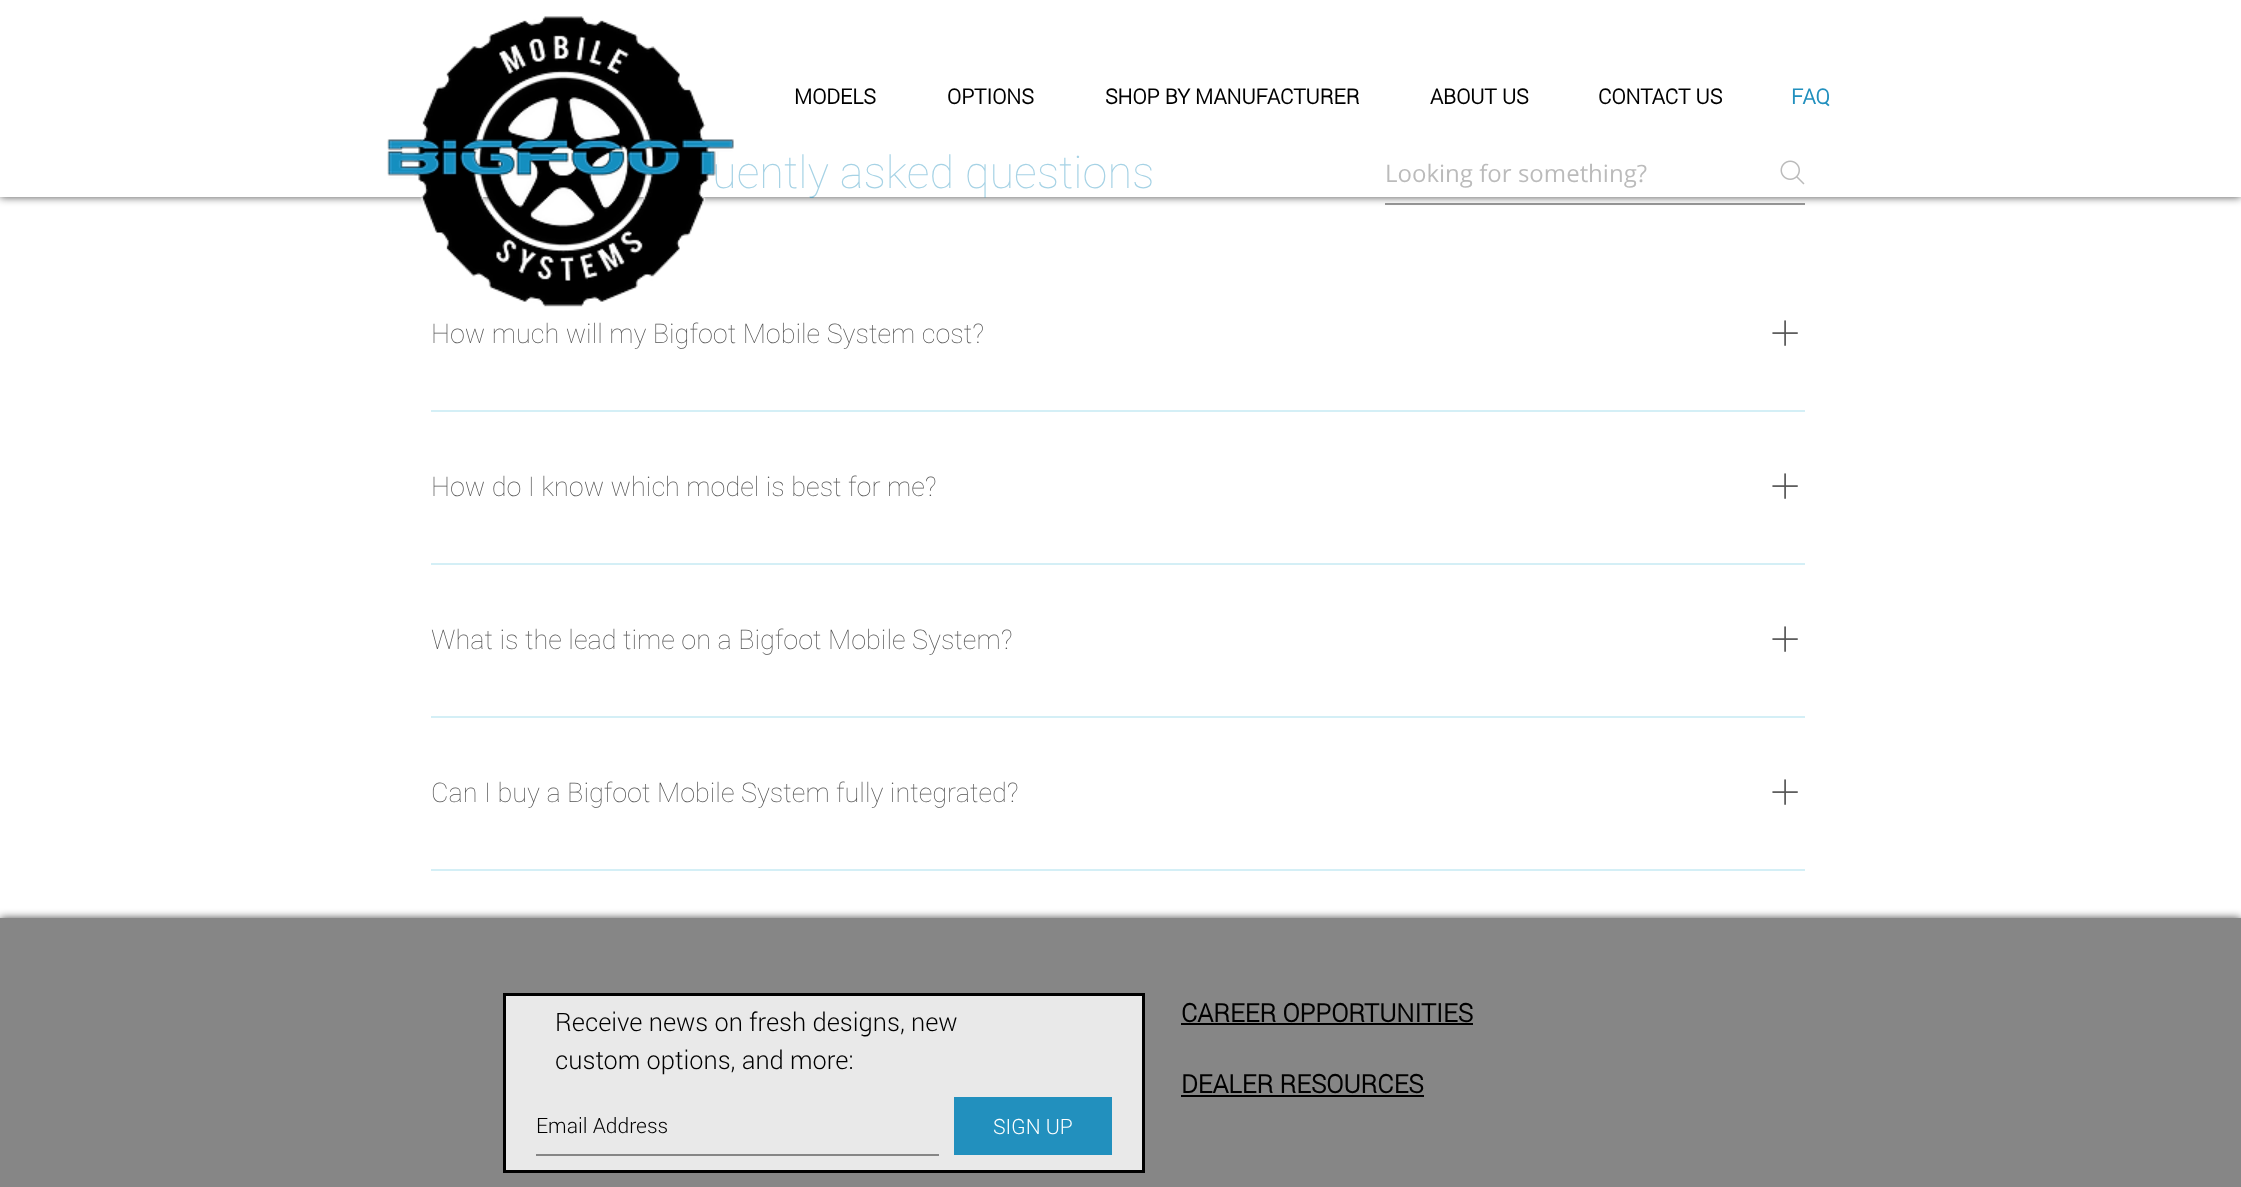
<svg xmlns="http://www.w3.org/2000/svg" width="2241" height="1187">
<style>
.a{font:bold 21px Roboto;fill:#000}
.b{font:bold 21px Roboto;fill:#2290be}
.c{font:100 45px Roboto;fill:#2290be}
.d{font:24px Open Sans;fill:#555}
.e{font:100 27px Roboto;fill:#555}
.f{font:300 25.5px Roboto;fill:#000}
.g{font:300 21px Roboto;fill:#000}
.h{font:300 21px Roboto;fill:#fff}
.i{font:bold 25.5px Roboto;fill:#000}
</style>
<defs>
<clipPath id="clip1"><path d="M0 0h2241v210h-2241zm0 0h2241v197h-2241z" clip-rule="evenodd"/></clipPath>
</defs>
<rect width="100%" height="100%" fill="#fff"/>
<path fill="#999" d="M1385 203h420v2H1385z"/>
<image href="2.png" x="1780" y="160" width="25" height="25"/>
<g clip-path="url(#clip1)">
<path fill="#000000b3" filter="blur(4px)" d="M0 0h2241v197H0z"/>
</g>
<image href="3.png" x="1772" y="320" width="26" height="26"/>
<path fill="#d4eff6" d="M431 410h1374v2H431z"/>
<image href="3.png" x="1772" y="473" width="26" height="26"/>
<path fill="#d4eff6" d="M431 563h1374v2H431z"/>
<image href="3.png" x="1772" y="626" width="26" height="26"/>
<path fill="#d4eff6" d="M431 716h1374v2H431z"/>
<image href="3.png" x="1772" y="779" width="26" height="26"/>
<path fill="#d4eff6" d="M431 869h1374v2H431z"/>
<path fill="#000000b3" filter="blur(4px)" d="M0 918h2241v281H0z"/>
<path fill="#868686" d="M0 918h2241v269H0z"/>
<path fill="#e9e9e9" stroke="#000" stroke-width="3" d="M504.5 994.5h639v177H504.5z"/>
<path fill="#868686" d="M536 1154h403v2H536z"/>
<path fill="#2290be" d="M954 1097h158v58H954z"/>
<path fill="#000" d="M1181 1023h292v2H1181z"/>
<path fill="#000" d="M1181 1095h243v2H1181z"/>
<text class="a" x="794" y="104">MODELS</text>
<text class="a" x="947" y="104">OPTIONS</text>
<text class="a" x="1105" y="104">SHOP BY MANUFACTURER</text>
<text class="a" x="1430" y="104">ABOUT US</text>
<text class="a" x="1598" y="104">CONTACT US</text>
<text class="b" x="1791" y="104">FAQ</text>
<text class="c" x="712" y="188">uently asked questions</text>
<text class="d" x="1385" y="182">Looking for something?</text>
<path fill="#ffffff99" d="M0 154h2241v43H0z"/>
<image href="1.png" x="387" y="16" width="347" height="291"/>
<text class="e" x="431" y="343">How much will my Bigfoot Mobile System cost?</text>
<text class="e" x="431" y="496">How do I know which model is best for me?</text>
<text class="e" x="431" y="649">What is the lead time on a Bigfoot Mobile System?</text>
<text class="e" x="431" y="802">Can I buy a Bigfoot Mobile System fully integrated?</text>
<text class="f" x="555" y="1031">Receive news on fresh designs, new</text>
<text class="f" x="555" y="1069">custom options, and more:</text>
<text class="g" x="536" y="1133">Email Address</text>
<text class="h" x="993" y="1134">SIGN UP</text>
<text class="i" x="1181" y="1022">CAREER OPPORTUNITIES</text>
<text class="i" x="1181" y="1093">DEALER RESOURCES</text>
</svg>
